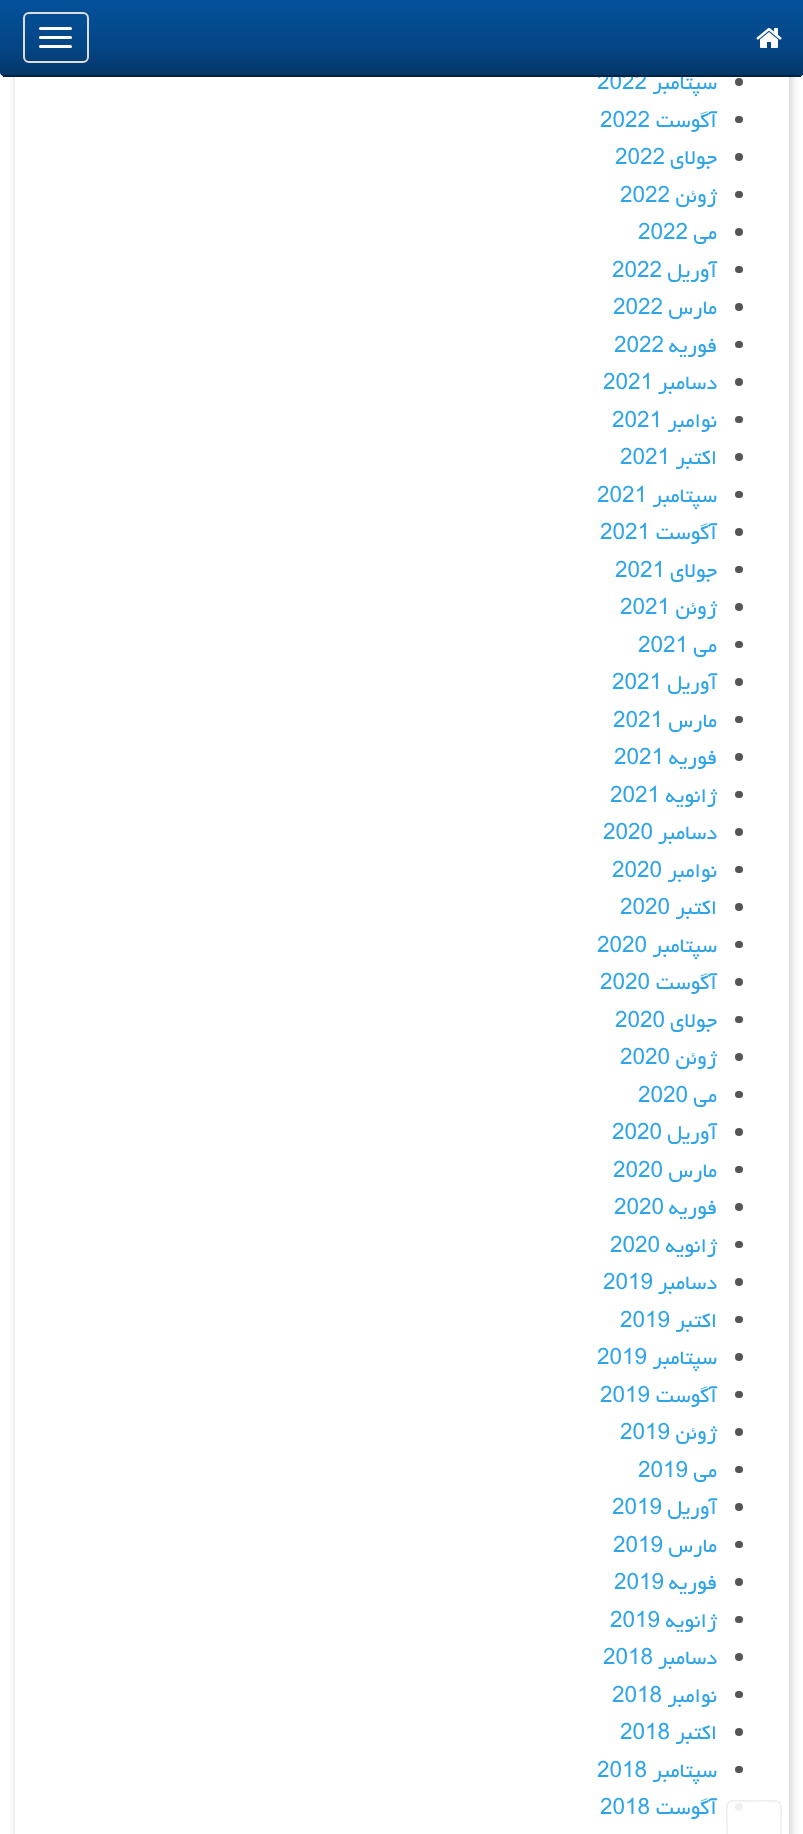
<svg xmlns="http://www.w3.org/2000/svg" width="803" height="1834">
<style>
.a{font:22.5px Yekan;direction:rtl;fill:#2fa4e7}
.b{font:22.5px Yekan;fill:#2fa4e7}
</style>
<defs>
<clipPath id="clip1"><path d="M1 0h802v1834h-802zm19-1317h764c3 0 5 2 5 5v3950c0 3-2 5-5 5h-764c-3 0-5-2-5-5v-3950c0-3 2-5 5-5z" clip-rule="evenodd"/></clipPath>
<linearGradient id="g1" gradientUnits="userSpaceOnUse" x1="754" y1="1802" x2="754" y2="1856"><stop offset="0" stop-color="#fff" stop-opacity="0.7"/><stop offset="0.6" stop-color="#fff" stop-opacity="0.7"/><stop offset="1" stop-color="#f5f5f5" stop-opacity="0.7"/></linearGradient>
<clipPath id="clip2"><path d="M0 0h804v71c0 3.5-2.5 6-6 6h-792c-3.5 0-6-2.5-6-6z"/></clipPath>
<linearGradient id="g2" gradientUnits="userSpaceOnUse" x1="402" y1="0" x2="402" y2="75"><stop offset="0" stop-color="#04519b"/><stop offset="0.6" stop-color="#044687"/><stop offset="1" stop-color="#033769"/></linearGradient>
</defs>
<rect width="100%" height="100%" fill="#fff"/>
<g clip-path="url(#clip1)">
<rect fill="#00000033" filter="blur(5px)" x="17" y="-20" width="774" height="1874" rx="5"/>
</g>
<circle fill="#555" cx="739" cy="1807" r="4"/>
<rect fill="#ffffffb3" x="726" y="1800" width="56" height="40" rx="6"/>
<path fill="url(#g1)" d="M735 1803h8v8H735z"/>
<path fill="none" stroke="#ededed" stroke-width="1.5" d="M728.5 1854.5c-3-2.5-1.5-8-1.5-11v-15c0-32.5-5.5-27.5 27-27.5c32 0 27-5 27 27.5v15c0 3 1 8.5-2 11"/>
<circle fill="#555" cx="739" cy="82" r="4"/>
<rect fill="#555" x="735" y="116" width="8" height="7" rx="3.5"/>
<circle fill="#555" cx="739" cy="157" r="4"/>
<rect fill="#555" x="735" y="191" width="8" height="7" rx="3.5"/>
<circle fill="#555" cx="739" cy="232" r="4"/>
<rect fill="#555" x="735" y="266" width="8" height="7" rx="3.5"/>
<circle fill="#555" cx="739" cy="307" r="4"/>
<rect fill="#555" x="735" y="341" width="8" height="7" rx="3.5"/>
<circle fill="#555" cx="739" cy="382" r="4"/>
<rect fill="#555" x="735" y="416" width="8" height="7" rx="3.5"/>
<circle fill="#555" cx="739" cy="457" r="4"/>
<rect fill="#555" x="735" y="491" width="8" height="7" rx="3.5"/>
<circle fill="#555" cx="739" cy="532" r="4"/>
<rect fill="#555" x="735" y="566" width="8" height="7" rx="3.5"/>
<circle fill="#555" cx="739" cy="607" r="4"/>
<rect fill="#555" x="735" y="641" width="8" height="7" rx="3.5"/>
<circle fill="#555" cx="739" cy="682" r="4"/>
<rect fill="#555" x="735" y="716" width="8" height="7" rx="3.5"/>
<circle fill="#555" cx="739" cy="757" r="4"/>
<rect fill="#555" x="735" y="791" width="8" height="7" rx="3.5"/>
<circle fill="#555" cx="739" cy="832" r="4"/>
<rect fill="#555" x="735" y="866" width="8" height="7" rx="3.5"/>
<circle fill="#555" cx="739" cy="907" r="4"/>
<rect fill="#555" x="735" y="941" width="8" height="7" rx="3.5"/>
<circle fill="#555" cx="739" cy="982" r="4"/>
<rect fill="#555" x="735" y="1016" width="8" height="7" rx="3.5"/>
<circle fill="#555" cx="739" cy="1057" r="4"/>
<rect fill="#555" x="735" y="1091" width="8" height="7" rx="3.5"/>
<circle fill="#555" cx="739" cy="1132" r="4"/>
<rect fill="#555" x="735" y="1166" width="8" height="7" rx="3.5"/>
<circle fill="#555" cx="739" cy="1207" r="4"/>
<rect fill="#555" x="735" y="1241" width="8" height="7" rx="3.5"/>
<circle fill="#555" cx="739" cy="1282" r="4"/>
<rect fill="#555" x="735" y="1316" width="8" height="7" rx="3.5"/>
<circle fill="#555" cx="739" cy="1357" r="4"/>
<rect fill="#555" x="735" y="1391" width="8" height="7" rx="3.5"/>
<circle fill="#555" cx="739" cy="1432" r="4"/>
<rect fill="#555" x="735" y="1466" width="8" height="7" rx="3.5"/>
<circle fill="#555" cx="739" cy="1507" r="4"/>
<rect fill="#555" x="735" y="1541" width="8" height="7" rx="3.5"/>
<circle fill="#555" cx="739" cy="1582" r="4"/>
<rect fill="#555" x="735" y="1616" width="8" height="7" rx="3.5"/>
<circle fill="#555" cx="739" cy="1657" r="4"/>
<rect fill="#555" x="735" y="1691" width="8" height="7" rx="3.5"/>
<circle fill="#555" cx="739" cy="1732" r="4"/>
<rect fill="#555" x="735" y="1766" width="8" height="7" rx="3.5"/>
<text class="a" x="717" y="89">سپتامبر</text>
<text class="b" x="597" y="89">2022</text>
<path fill="#033c73" d="M0 0h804v71c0 3.5-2.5 6-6 6h-792c-3.5 0-6-2.5-6-6z"/>
<g clip-path="url(#clip2)">
<path fill="url(#g2)" d="M0 0h803v75H0z"/>
</g>
<rect fill="none" stroke="#ddd" stroke-width="2" x="24" y="13" width="64" height="49" rx="5"/>
<rect fill="#fff" x="39" y="45" width="33" height="3" rx="1.5"/>
<rect fill="#fff" x="39" y="36" width="33" height="3" rx="1.5"/>
<rect fill="#fff" x="39" y="27" width="33" height="3" rx="1.5"/>
<image href="1.png" x="756" y="28" width="26" height="20"/>
<path fill="#022241" d="M3 75h798v2H3z"/>
<text class="a" x="717" y="127">آگوست</text>
<text class="b" x="600" y="127">2022</text>
<text class="a" x="717" y="164">جولای</text>
<text class="b" x="615" y="164">2022</text>
<text class="a" x="717" y="202">ژوئن</text>
<text class="b" x="620" y="202">2022</text>
<text class="a" x="717" y="239">می</text>
<text class="b" x="638" y="239">2022</text>
<text class="a" x="717" y="277">آوریل</text>
<text class="b" x="612" y="277">2022</text>
<text class="a" x="717" y="314">مارس</text>
<text class="b" x="613" y="314">2022</text>
<text class="a" x="717" y="352">فوریه</text>
<text class="b" x="614" y="352">2022</text>
<text class="a" x="717" y="389">دسامبر</text>
<text class="b" x="603" y="389">2021</text>
<text class="a" x="717" y="427">نوامبر</text>
<text class="b" x="612" y="427">2021</text>
<text class="a" x="717" y="464">اکتبر</text>
<text class="b" x="620" y="464">2021</text>
<text class="a" x="717" y="502">سپتامبر</text>
<text class="b" x="597" y="502">2021</text>
<text class="a" x="717" y="539">آگوست</text>
<text class="b" x="600" y="539">2021</text>
<text class="a" x="717" y="577">جولای</text>
<text class="b" x="615" y="577">2021</text>
<text class="a" x="717" y="614">ژوئن</text>
<text class="b" x="620" y="614">2021</text>
<text class="a" x="717" y="652">می</text>
<text class="b" x="638" y="652">2021</text>
<text class="a" x="717" y="689">آوریل</text>
<text class="b" x="612" y="689">2021</text>
<text class="a" x="717" y="727">مارس</text>
<text class="b" x="613" y="727">2021</text>
<text class="a" x="717" y="764">فوریه</text>
<text class="b" x="614" y="764">2021</text>
<text class="a" x="717" y="802">ژانویه</text>
<text class="b" x="610" y="802">2021</text>
<text class="a" x="717" y="839">دسامبر</text>
<text class="b" x="603" y="839">2020</text>
<text class="a" x="717" y="877">نوامبر</text>
<text class="b" x="612" y="877">2020</text>
<text class="a" x="717" y="914">اکتبر</text>
<text class="b" x="620" y="914">2020</text>
<text class="a" x="717" y="952">سپتامبر</text>
<text class="b" x="597" y="952">2020</text>
<text class="a" x="717" y="989">آگوست</text>
<text class="b" x="600" y="989">2020</text>
<text class="a" x="717" y="1027">جولای</text>
<text class="b" x="615" y="1027">2020</text>
<text class="a" x="717" y="1064">ژوئن</text>
<text class="b" x="620" y="1064">2020</text>
<text class="a" x="717" y="1102">می</text>
<text class="b" x="638" y="1102">2020</text>
<text class="a" x="717" y="1139">آوریل</text>
<text class="b" x="612" y="1139">2020</text>
<text class="a" x="717" y="1177">مارس</text>
<text class="b" x="613" y="1177">2020</text>
<text class="a" x="717" y="1214">فوریه</text>
<text class="b" x="614" y="1214">2020</text>
<text class="a" x="717" y="1252">ژانویه</text>
<text class="b" x="610" y="1252">2020</text>
<text class="a" x="717" y="1289">دسامبر</text>
<text class="b" x="603" y="1289">2019</text>
<text class="a" x="717" y="1327">اکتبر</text>
<text class="b" x="620" y="1327">2019</text>
<text class="a" x="717" y="1364">سپتامبر</text>
<text class="b" x="597" y="1364">2019</text>
<text class="a" x="717" y="1402">آگوست</text>
<text class="b" x="600" y="1402">2019</text>
<text class="a" x="717" y="1439">ژوئن</text>
<text class="b" x="620" y="1439">2019</text>
<text class="a" x="717" y="1477">می</text>
<text class="b" x="638" y="1477">2019</text>
<text class="a" x="717" y="1514">آوریل</text>
<text class="b" x="612" y="1514">2019</text>
<text class="a" x="717" y="1552">مارس</text>
<text class="b" x="613" y="1552">2019</text>
<text class="a" x="717" y="1589">فوریه</text>
<text class="b" x="614" y="1589">2019</text>
<text class="a" x="717" y="1627">ژانویه</text>
<text class="b" x="610" y="1627">2019</text>
<text class="a" x="717" y="1664">دسامبر</text>
<text class="b" x="603" y="1664">2018</text>
<text class="a" x="717" y="1702">نوامبر</text>
<text class="b" x="612" y="1702">2018</text>
<text class="a" x="717" y="1739">اکتبر</text>
<text class="b" x="620" y="1739">2018</text>
<text class="a" x="717" y="1777">سپتامبر</text>
<text class="b" x="597" y="1777">2018</text>
<text class="a" x="717" y="1814">آگوست</text>
<text class="b" x="600" y="1814">2018</text>
</svg>
